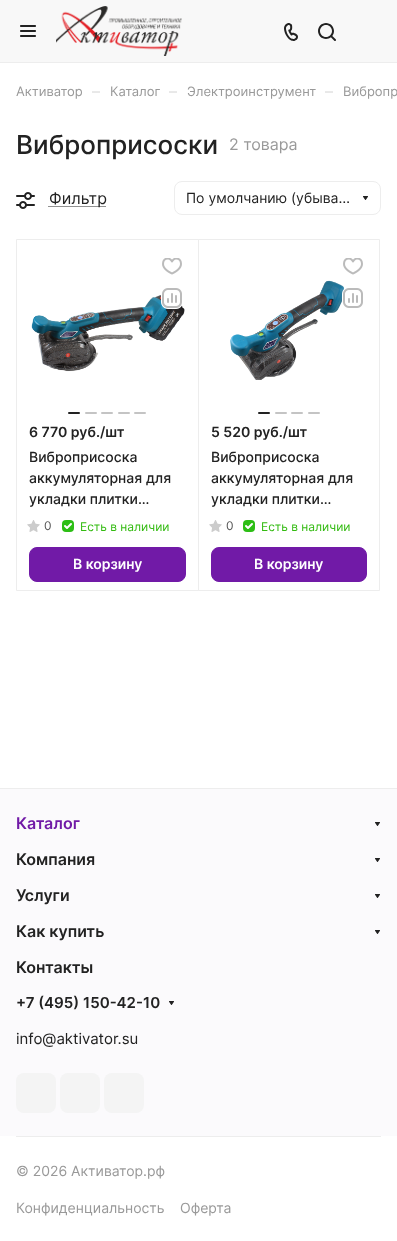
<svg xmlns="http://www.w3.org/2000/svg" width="397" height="1241">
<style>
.a{font:13px Inter;fill:#999}
.b{font:16px Inter;fill:#ddd}
.c{font:500 26px Inter;fill:#222}
.d{font:16px Inter;fill:#999}
.e{font:16px Inter;fill:#222}
.f{font:14px Inter;fill:#222}
.g{font:600 14px Inter;fill:#222}
.h{font:500 14px Inter;fill:#222}
.i{font:12px Inter;fill:#555}
.j{font:12px Inter;fill:#3b1}
.k{font:600 14px Inter;fill:#fff}
.l{font:600 16px Inter;fill:#711aa7}
.m{font:600 16px Inter;fill:#222}
.n{font:600 15px Inter;fill:#222}
.o{font:15px Inter;fill:#222}
.p{font:14px Inter;fill:#999}
</style>
<rect width="100%" height="100%" fill="#fff"/>
<path fill="#ededed" d="M0 62h397v1H0z"/>
<path fill="#f8f8f8" d="M0 0h397v62H0z"/>
<image href="1.png" x="20" y="25" width="16" height="12"/>
<image href="2.png" x="56" y="6" width="126" height="50"/>
<image href="3.png" x="284" y="23" width="14" height="18"/>
<image href="4.png" x="318" y="23" width="18" height="18"/>
<image href="5.png" x="16" y="192" width="19" height="17"/>
<path fill="none" stroke="#222" stroke-dasharray="1 1" d="M48.5 206.5h58"/>
<rect fill="none" stroke="#ededed" x="174.5" y="181.5" width="206" height="33" rx="7.5"/>
<image href="6.png" x="363" y="196" width="5" height="4"/>
<path fill="none" stroke="#ededed" d="M16.5 239.5h182v351H16.5z"/>
<image href="7.png" x="162" y="258" width="20" height="17"/>
<image href="10.png" x="31" y="294" width="154" height="78"/>
<image href="9.png" x="161" y="294" width="21" height="15"/>
<image href="8.png" x="162" y="288" width="20" height="20"/>
<rect fill="#222" x="68" y="412" width="12" height="2" rx="1"/>
<rect fill="#c4c4c4" x="85" y="412" width="12" height="2" rx="1"/>
<rect fill="#c4c4c4" x="101" y="412" width="12" height="2" rx="1"/>
<rect fill="#c4c4c4" x="118" y="412" width="12" height="2" rx="1"/>
<rect fill="#c4c4c4" x="134" y="412" width="12" height="2" rx="1"/>
<image href="11.png" x="27" y="520" width="13" height="12"/>
<image href="12.png" x="62" y="520" width="12" height="12"/>
<rect fill="#711aa7" stroke="#711aa7" x="29.5" y="547.5" width="156" height="34" rx="7.5"/>
<path fill="none" stroke="#ededed" d="M198.5 239.5h181v351H198.5z"/>
<image href="13.png" x="230" y="280" width="116" height="100"/>
<image href="7.png" x="343" y="258" width="20" height="17"/>
<image href="15.png" x="342" y="289" width="4" height="12"/>
<image href="14.png" x="343" y="288" width="20" height="20"/>
<rect fill="#222" x="258" y="412" width="12" height="2" rx="1"/>
<rect fill="#c4c4c4" x="275" y="412" width="12" height="2" rx="1"/>
<rect fill="#c4c4c4" x="291" y="412" width="12" height="2" rx="1"/>
<rect fill="#c4c4c4" x="308" y="412" width="12" height="2" rx="1"/>
<image href="11.png" x="209" y="520" width="13" height="12"/>
<image href="12.png" x="243" y="520" width="12" height="12"/>
<rect fill="#711aa7" stroke="#711aa7" x="211.5" y="547.5" width="155" height="34" rx="7.5"/>
<path fill="#ededed" d="M0 788h397v1H0z"/>
<path fill="#fbfafc" d="M0 789h397v347H0z"/>
<image href="16.png" x="375" y="822" width="5" height="4"/>
<image href="16.png" x="375" y="858" width="5" height="4"/>
<image href="16.png" x="375" y="894" width="5" height="4"/>
<image href="16.png" x="375" y="930" width="5" height="4"/>
<image href="16.png" x="169" y="1001" width="5" height="4"/>
<rect fill="#f4f4f4" x="16" y="1073" width="40" height="40" rx="8"/>
<rect fill="#f4f4f4" x="60" y="1073" width="40" height="40" rx="8"/>
<rect fill="#f4f4f4" x="104" y="1073" width="40" height="40" rx="8"/>
<path fill="#ededed" d="M16 1136h365v1H16z"/>
<text class="a" x="16" y="96">Активатор</text>
<text class="b" x="92" y="97">–</text>
<text class="a" x="110" y="96">Каталог</text>
<text class="b" x="169" y="97">–</text>
<text class="a" x="187" y="96">Электроинструмент</text>
<text class="b" x="325" y="97">–</text>
<text class="a" x="343" y="96">Вибропр</text>
<text class="c" x="16" y="154">Виброприсоски</text>
<text class="d" x="229" y="150">2 товара</text>
<text class="e" x="49" y="204">Фильтр</text>
<text class="f" x="186" y="203">По умолчанию (убыва…</text>
<text class="g" x="29" y="437">6 770 руб./шт</text>
<text class="h" x="29" y="462">Виброприсоска</text>
<text class="h" x="29" y="483">аккумуляторная для</text>
<text class="h" x="29" y="504">укладки плитки…</text>
<text class="i" x="44" y="530">0</text>
<text class="j" x="80" y="531">Есть в наличии</text>
<text class="k" x="73" y="569">В корзину</text>
<text class="g" x="211" y="437">5 520 руб./шт</text>
<text class="h" x="211" y="462">Виброприсоска</text>
<text class="h" x="211" y="483">аккумуляторная для</text>
<text class="h" x="211" y="504">укладки плитки…</text>
<text class="i" x="226" y="530">0</text>
<text class="j" x="261" y="531">Есть в наличии</text>
<text class="k" x="254" y="569">В корзину</text>
<text class="l" x="16" y="829">Каталог</text>
<text class="m" x="16" y="865">Компания</text>
<text class="m" x="16" y="901">Услуги</text>
<text class="m" x="16" y="937">Как купить</text>
<text class="m" x="16" y="973">Контакты</text>
<text class="n" x="16" y="1008">+7 (495) 150-42-10</text>
<text class="o" x="16" y="1044">info@aktivator.su</text>
<text class="p" x="16" y="1176">© 2026 Aктиватор.рф</text>
<text class="p" x="16" y="1213">Конфиденциальность</text>
<text class="p" x="180" y="1213">Оферта</text>
</svg>
